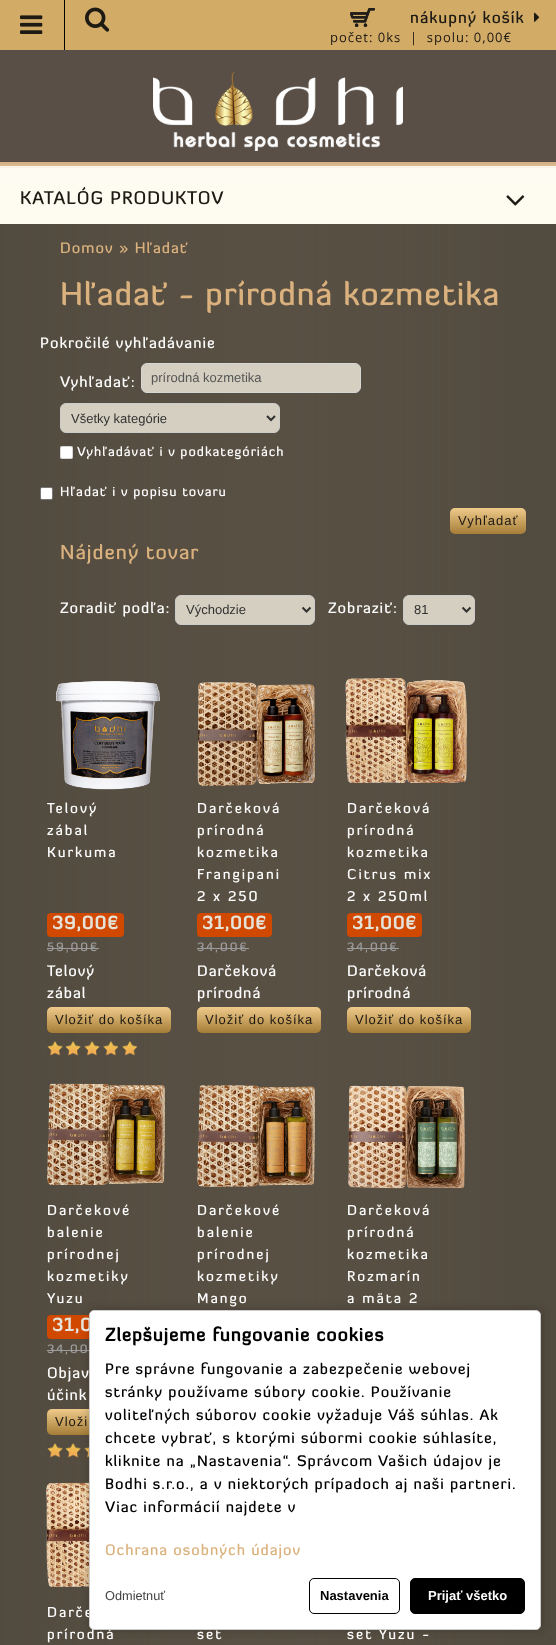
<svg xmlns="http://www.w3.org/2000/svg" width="556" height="1645">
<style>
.a{font:500 16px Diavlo;letter-spacing:1px;fill:#1d1913}
.b{font:13px Open Sans;letter-spacing:1px;fill:#1d1913}
.c{font:500 18px Diavlo;letter-spacing:1px;fill:#1d1913}
.d{font:500 15px Diavlo;letter-spacing:1px;fill:#dbb27e}
.e{font:500 32px Diavlo;letter-spacing:1px;fill:#dbb27e}
.f{font:500 15px Diavlo;letter-spacing:1px;fill:#fcfcfc}
.g{font:13px Liberation Sans;fill:#555}
.h{font:13px Liberation Sans;fill:#323232}
.i{font:500 13px Diavlo;letter-spacing:1px;fill:#fcfcfc}
.j{font:13px Liberation Sans;letter-spacing:1px;fill:#1d1913}
.k{font:500 20px Diavlo;letter-spacing:1px;fill:#dbb27e}
.l{font:500 14px Diavlo;letter-spacing:2px;fill:#fcfcfc}
.m{font:bold 18px Diavlo;letter-spacing:1px;fill:#e5e2d9}
.n{font:500 12px Diavlo;letter-spacing:2px;fill:#9c9c9d}
.o{font:bold 18px Diavlo;letter-spacing:1px;fill:#000}
.p{font:500 15px Diavlo;letter-spacing:1px;fill:#000}
.q{font:12.75px Liberation Sans;fill:#404040}
.r{font:bold 13px Liberation Sans;fill:#000}
.s{font:bold 13px Liberation Sans;fill:#fcfcfc}
</style>
<defs>
<linearGradient id="g1" gradientUnits="userSpaceOnUse" x1="450" y1="508" x2="450" y2="534"><stop offset="0" stop-color="#efca8b"/><stop offset="1" stop-color="#a57d37"/></linearGradient>
<linearGradient id="g2" gradientUnits="userSpaceOnUse" x1="47" y1="1007" x2="47" y2="1033"><stop offset="0" stop-color="#efca8b"/><stop offset="1" stop-color="#a57d37"/></linearGradient>
<linearGradient id="g3" gradientUnits="userSpaceOnUse" x1="197" y1="1007" x2="197" y2="1033"><stop offset="0" stop-color="#efca8b"/><stop offset="1" stop-color="#a57d37"/></linearGradient>
<linearGradient id="g4" gradientUnits="userSpaceOnUse" x1="347" y1="1007" x2="347" y2="1033"><stop offset="0" stop-color="#efca8b"/><stop offset="1" stop-color="#a57d37"/></linearGradient>
<linearGradient id="g5" gradientUnits="userSpaceOnUse" x1="47" y1="1409" x2="47" y2="1435"><stop offset="0" stop-color="#efca8b"/><stop offset="1" stop-color="#a57d37"/></linearGradient>
</defs>
<rect width="100%" height="100%" fill="#fff"/>
<image href="1.png" x="0" y="50" width="556" height="129"/>
<path fill="#d2ab67" d="M0 0h556v50H0z"/>
<path fill="#000" d="M64 0h1v50H64z"/>
<image href="2.png" x="20" y="15" width="23" height="19"/>
<image href="3.png" x="85" y="7" width="25" height="25"/>
<image href="4.png" x="350" y="8" width="25" height="19"/>
<image href="5.png" x="534" y="12" width="6" height="10"/>
<image href="6.png" x="153" y="72" width="250" height="79"/>
<path fill="#fefbf1" d="M0 179h556v45H0z"/>
<image href="7.png" x="506" y="195" width="19" height="11"/>
<image href="8.png" x="0" y="224" width="556" height="1421"/>
<rect fill="#d4cfc0" stroke="#d7d7d7" x="141.5" y="363.5" width="219" height="29" rx="5.5"/>
<rect fill="#d4cfc0" stroke="#ccc" x="60.5" y="403.5" width="219" height="29" rx="5.5"/>
<path fill="none" stroke="#323232" stroke-width="2" d="M267 416l4 4l4-4"/>
<rect fill="#fff" x="60" y="446" width="13" height="13" rx="2"/>
<rect fill="none" stroke="#7676764d" x="60.5" y="446.5" width="12" height="12" rx="1.5"/>
<rect fill="#fff" stroke="#767676" x="40.5" y="487.5" width="12" height="12" rx="1.5"/>
<rect fill="url(#g1)" x="450" y="508" width="76" height="26" rx="5"/>
<rect fill="#d4cfc0" stroke="#ccc" x="175.5" y="595.5" width="139" height="29" rx="5.5"/>
<path fill="none" stroke="#323232" stroke-width="2" d="M302.5 607.5l4 4l4-4"/>
<rect fill="#d4cfc0" stroke="#ccc" x="403.5" y="595.5" width="71" height="29" rx="5.5"/>
<path fill="none" stroke="#323232" stroke-width="2" d="M462.5 607.5l4 4l4-4"/>
<image href="9.png" x="56" y="681" width="104" height="109"/>
<rect fill="#d14800" x="47" y="913" width="77" height="24" rx="4"/>
<path fill="#9c9c9d" d="M47 948h52v1H47z"/>
<rect fill="url(#g2)" x="47" y="1007" width="124" height="26" rx="5"/>
<image href="10.png" x="47" y="1041" width="91" height="15"/>
<image href="11.png" x="197" y="682" width="118" height="104"/>
<rect fill="#d14800" x="197" y="913" width="75" height="24" rx="4"/>
<path fill="#9c9c9d" d="M197 948h52v1H197z"/>
<rect fill="url(#g3)" x="197" y="1007" width="124" height="26" rx="5"/>
<image href="12.png" x="345" y="677" width="122" height="106"/>
<rect fill="#d14800" x="347" y="913" width="75" height="24" rx="4"/>
<path fill="#9c9c9d" d="M347 948h52v1H347z"/>
<rect fill="url(#g4)" x="347" y="1007" width="124" height="26" rx="5"/>
<image href="13.png" x="47" y="1083" width="118" height="102"/>
<rect fill="#d14800" x="47" y="1315" width="75" height="24" rx="4"/>
<path fill="#9c9c9d" d="M47 1350h42v1H47z"/>
<rect fill="url(#g5)" x="47" y="1409" width="124" height="26" rx="5"/>
<image href="14.png" x="47" y="1443" width="42" height="15"/>
<image href="15.png" x="197" y="1085" width="118" height="102"/>
<image href="16.png" x="348" y="1085" width="117" height="104"/>
<image href="17.png" x="46" y="1482" width="43" height="105"/>
<path fill="#0000001a" filter="blur(5px)" d="M89 1310h452v320H89z"/>
<rect fill="#0000001a" filter="blur(5px)" x="89" y="1310" width="452" height="320" rx="5"/>
<text class="a" x="410" y="23">nákupný košík</text>
<text class="b" xml:space="preserve" x="330" y="42">počet: 0ks  |  spolu: 0,00€</text>
<text class="c" x="20" y="204">KATALÓG PRODUKTOV</text>
<text class="d" x="60" y="253">Domov » Hľadať</text>
<text class="e" x="60" y="305">Hľadať - prírodná kozmetika</text>
<text class="f" x="40" y="348">Pokročilé vyhľadávanie</text>
<text class="f" x="60" y="387">Vyhľadať:</text>
<text class="g" x="151" y="382">prírodná kozmetika</text>
<text class="h" x="71" y="423">Všetky kategórie</text>
<text class="i" x="77" y="456">Vyhľadávať i v podkategóriách</text>
<text class="i" x="60" y="496">Hľadať i v popisu tovaru</text>
<text class="j" x="458" y="525">Vyhľadať</text>
<text class="k" x="60" y="559">Nájdený tovar</text>
<text class="f" x="60" y="613">Zoradiť podľa:</text>
<text class="h" x="186" y="614">Východzie</text>
<text class="f" x="328" y="613">Zobraziť:</text>
<text class="h" x="414" y="614">81</text>
<text class="l" x="47" y="813">Telový</text>
<text class="l" x="47" y="835">zábal</text>
<text class="l" x="47" y="857">Kurkuma</text>
<text class="m" x="52" y="929">39,00€</text>
<text class="n" x="47" y="951">59,00€</text>
<text class="f" x="47" y="976">Telový</text>
<text class="f" x="47" y="998">zábal</text>
<text class="j" x="55" y="1024">Vložiť do košíka</text>
<text class="l" x="197" y="813">Darčeková</text>
<text class="l" x="197" y="835">prírodná</text>
<text class="l" x="197" y="857">kozmetika</text>
<text class="l" x="197" y="879">Frangipani</text>
<text class="l" x="197" y="901">2 x 250</text>
<text class="m" x="202" y="929">31,00€</text>
<text class="n" x="197" y="951">34,00€</text>
<text class="f" x="197" y="976">Darčeková</text>
<text class="f" x="197" y="998">prírodná</text>
<text class="j" x="205" y="1024">Vložiť do košíka</text>
<text class="l" x="347" y="813">Darčeková</text>
<text class="l" x="347" y="835">prírodná</text>
<text class="l" x="347" y="857">kozmetika</text>
<text class="l" x="347" y="879">Citrus mix</text>
<text class="l" x="347" y="901">2 x 250ml</text>
<text class="m" x="352" y="929">31,00€</text>
<text class="n" x="347" y="951">34,00€</text>
<text class="f" x="347" y="976">Darčeková</text>
<text class="f" x="347" y="998">prírodná</text>
<text class="j" x="355" y="1024">Vložiť do košíka</text>
<text class="l" x="47" y="1215">Darčekové</text>
<text class="l" x="47" y="1237">balenie</text>
<text class="l" x="47" y="1259">prírodnej</text>
<text class="l" x="47" y="1281">kozmetiky</text>
<text class="l" x="47" y="1303">Yuzu</text>
<text class="m" x="52" y="1331">31,0</text>
<text class="n" x="47" y="1353">34,00</text>
<text class="f" x="47" y="1378">Objav</text>
<text class="f" x="47" y="1400">účink</text>
<text class="j" x="55" y="1426">Vloži</text>
<text class="l" x="197" y="1215">Darčekové</text>
<text class="l" x="197" y="1237">balenie</text>
<text class="l" x="197" y="1259">prírodnej</text>
<text class="l" x="197" y="1281">kozmetiky</text>
<text class="l" x="197" y="1303">Mango</text>
<text class="l" x="347" y="1215">Darčeková</text>
<text class="l" x="347" y="1237">prírodná</text>
<text class="l" x="347" y="1259">kozmetika</text>
<text class="l" x="347" y="1281">Rozmarín</text>
<text class="l" x="347" y="1303">a mäta 2</text>
<text class="l" x="47" y="1617">Darče</text>
<text class="l" x="47" y="1639">prírodná</text>
<text class="l" x="197" y="1639">set</text>
<text class="l" x="347" y="1639">set Yuzu -</text>
<rect fill="#fff" stroke="#ccc" x="89.5" y="1310.5" width="451" height="319" rx="4.5"/>
<text class="o" x="105" y="1341">Zlepšujeme fungovanie cookies</text>
<text class="p" x="105" y="1374">Pre správne fungovanie a zabezpečenie webovej</text>
<text class="p" x="105" y="1397">stránky používame súbory cookie. Používanie</text>
<text class="p" x="105" y="1420">voliteľných súborov cookie vyžaduje Váš súhlas. Ak</text>
<text class="p" x="105" y="1443">chcete vybrať, s ktorými súbormi cookie súhlasíte,</text>
<text class="p" x="105" y="1466">kliknite na „Nastavenia“. Správcom Vašich údajov je</text>
<text class="p" x="105" y="1489">Bodhi s.r.o., a v niektorých prípadoch aj naši partneri.</text>
<text class="p" x="105" y="1512">Viac informácií najdete v</text>
<text class="d" x="105" y="1555">Ochrana osobných údajov</text>
<text class="q" x="105" y="1600">Odmietnuť</text>
<rect fill="none" stroke="#000" x="309.5" y="1578.5" width="90" height="35" rx="4.5"/>
<text class="r" x="320" y="1600">Nastavenia</text>
<rect fill="#000" stroke="#000" x="410.5" y="1578.5" width="114" height="35" rx="4.5"/>
<text class="s" x="428" y="1600">Prijať všetko</text>
</svg>
